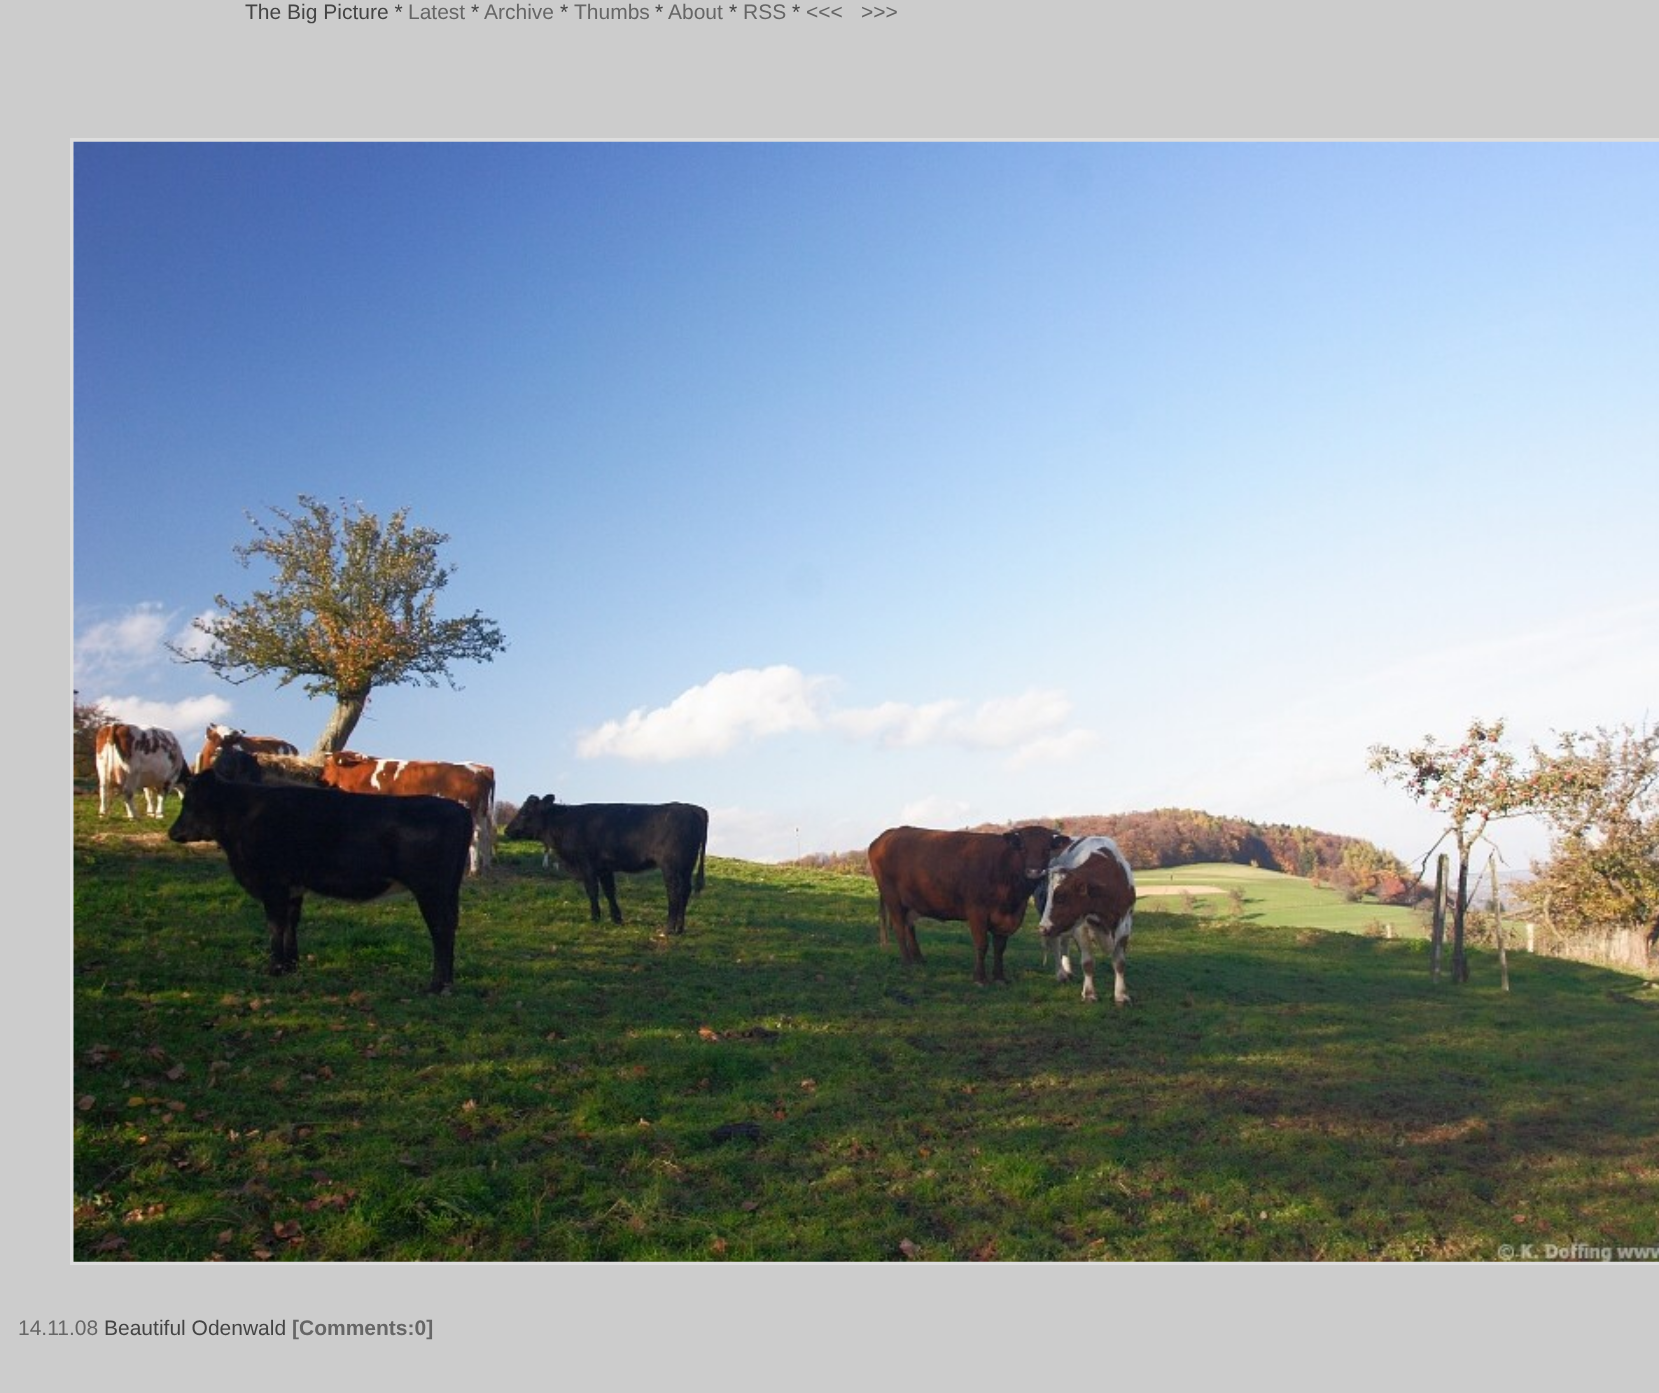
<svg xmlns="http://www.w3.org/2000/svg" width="1659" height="1393">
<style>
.a{font:21px Liberation Sans;fill:#444}
.b{font:21px Liberation Sans;fill:#666}
.c{font:bold 21px Liberation Sans;fill:#666}
</style>
<rect width="100%" height="100%" fill="#ccc"/>
<path fill="none" stroke="#ddd" stroke-width="4" d="M72 140h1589v1123H72z"/>
<image href="1.png" x="73" y="141" width="1586" height="1121"/>
<text class="a" x="245" y="19">The Big Picture *</text>
<text class="b" x="408" y="19">Latest</text>
<text class="a" x="471" y="19">*</text>
<text class="b" x="484" y="19">Archive</text>
<text class="a" x="560" y="19">*</text>
<text class="b" x="574" y="19">Thumbs</text>
<text class="a" x="655" y="19">*</text>
<text class="b" x="668" y="19">About</text>
<text class="a" x="729" y="19">*</text>
<text class="b" x="743" y="19">RSS</text>
<text class="a" x="792" y="19">*</text>
<text class="b" x="806" y="19">&lt;&lt;&lt;</text>
<text class="b" x="861" y="19">&gt;&gt;&gt;</text>
<text class="b" x="18" y="1335">14.11.08</text>
<text class="a" x="104" y="1335">Beautiful Odenwald</text>
<text class="c" x="292" y="1335">[Comments:0]</text>
</svg>
